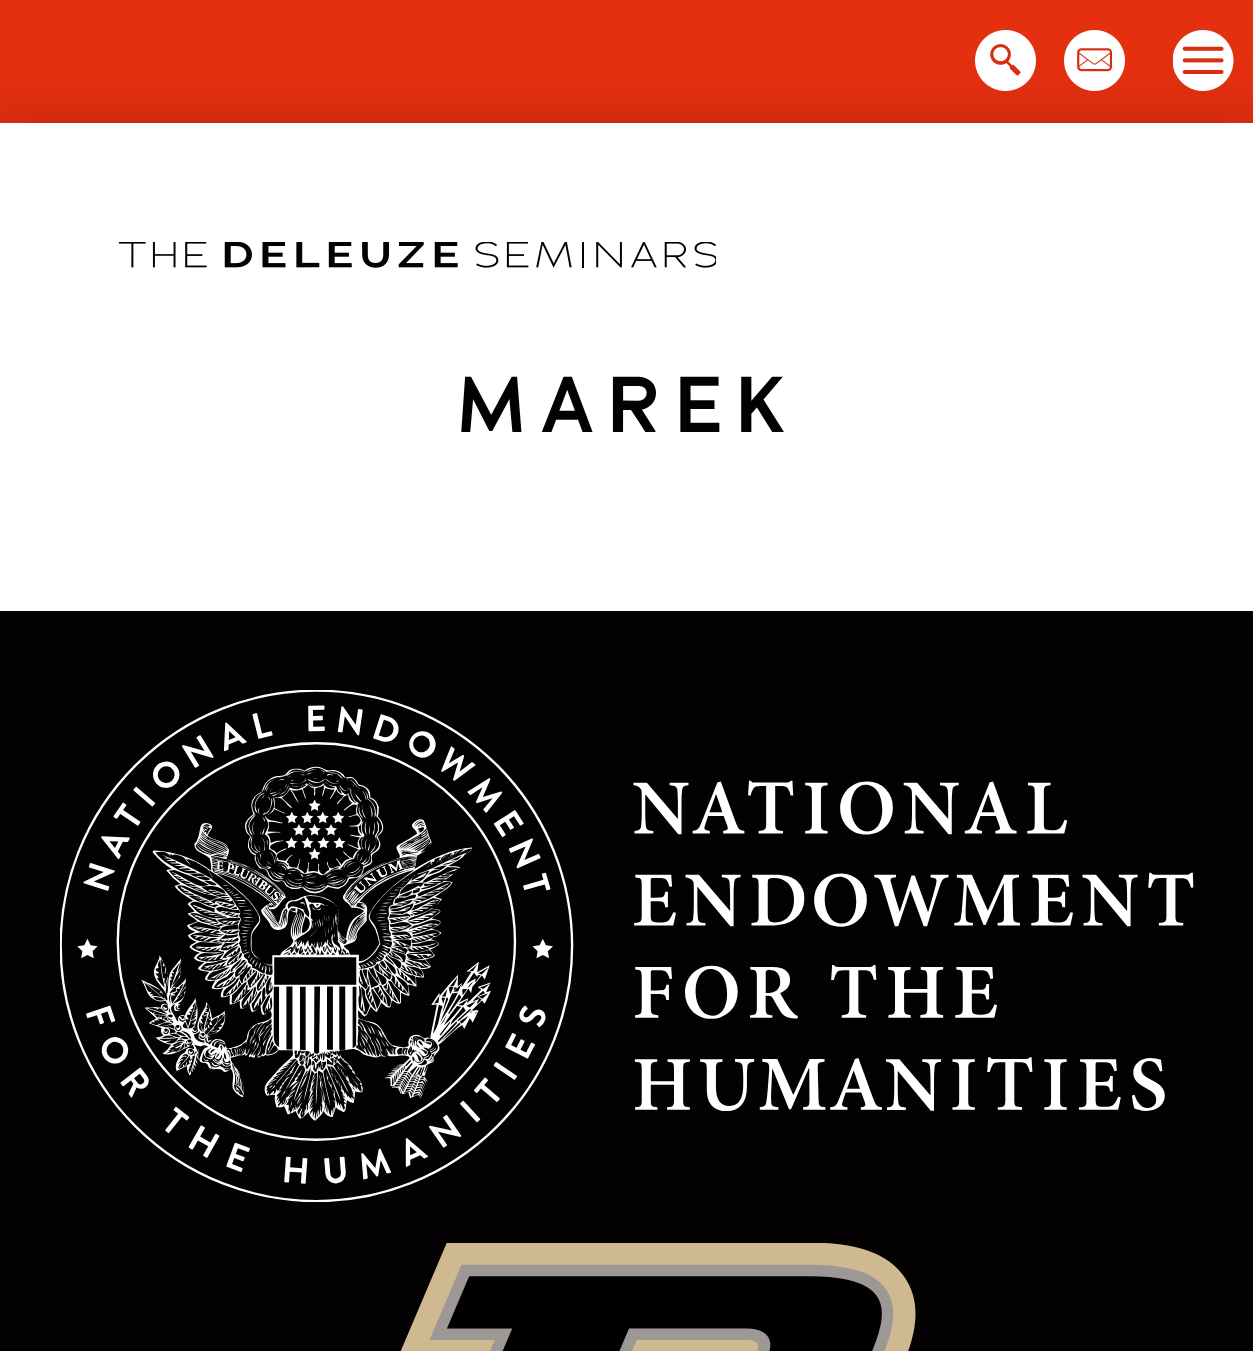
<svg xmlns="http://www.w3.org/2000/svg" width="1253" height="1351">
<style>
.a{font:600 78.75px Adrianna;letter-spacing:12px;fill:#030102}
</style>
<rect width="100%" height="100%" fill="#e53010"/>
<path fill="#0301024d" filter="blur(39.5px)" d="M-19 142h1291v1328H-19z"/>
<image href="1.png" x="975" y="30" width="61" height="61"/>
<image href="2.png" x="1064" y="30" width="61" height="61"/>
<image href="3.png" x="1173" y="30" width="61" height="61"/>
<path fill="#fff" d="M0 123h1253v488H0z"/>
<image href="4.png" x="119" y="242" width="597" height="26"/>
<path fill="#030102" d="M0 611h1253v740H0z"/>
<image href="5.png" x="60" y="690" width="1134" height="512"/>
<image href="6.png" x="400" y="1243" width="516" height="108"/>
<text class="a" x="457" y="432">MAREK</text>
</svg>
